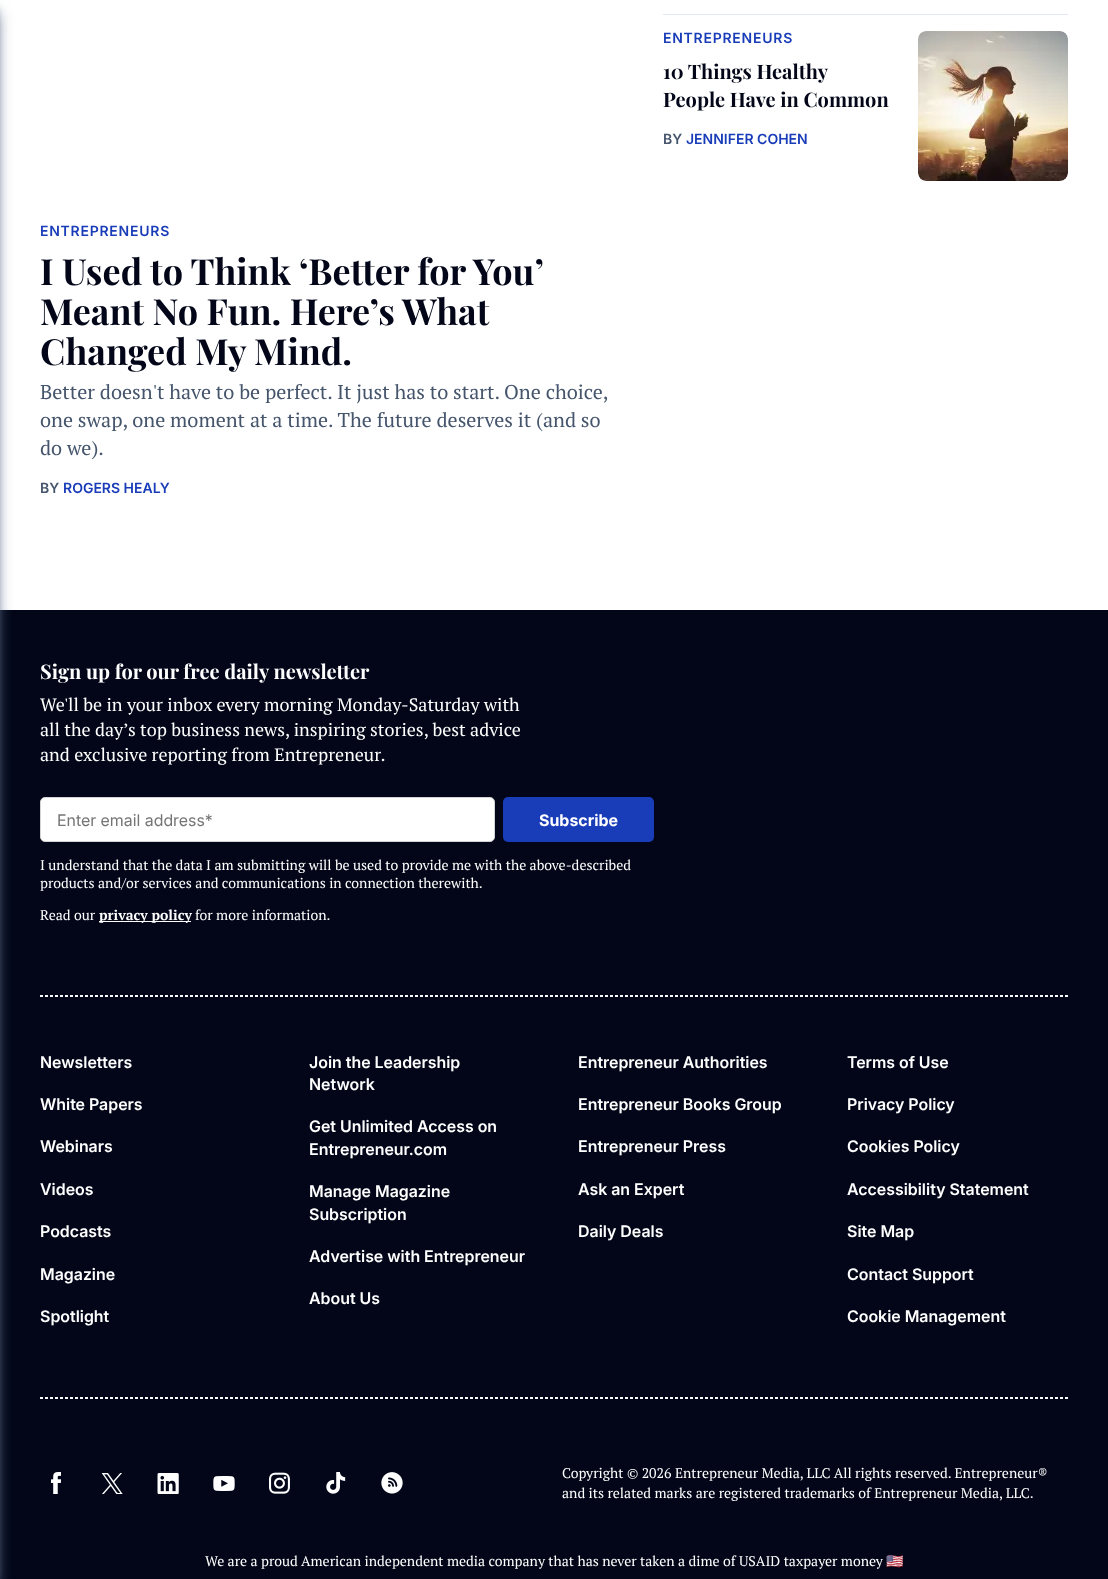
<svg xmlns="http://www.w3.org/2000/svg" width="1108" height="1579">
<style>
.a{font:600 14px Inter;letter-spacing:0.75px;fill:#193cb8}
.b{font:bold 20px Playfair Display;fill:#020618}
.c{font:600 14px Inter;fill:#45556c}
.d{font:600 14px Inter;fill:#193cb8}
.e{font:bold 36px Playfair Display;fill:#020618}
.f{font:20px PT Serif;fill:#45556c}
.g{font:bold 20px Playfair Display;fill:#fff}
.h{font:18px PT Serif;fill:#fff}
.i{font:16px Inter;fill:#757575}
.j{font:bold 16px Inter;fill:#fff}
.k{font:14px PT Serif;fill:#fff}
.l{font:bold 14px PT Serif;fill:#fff}
.m{font:600 16px 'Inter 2';fill:#fff}
.n{font:14px Noto Color Emoji;fill:#fff}
</style>
<rect width="100%" height="100%" fill="#fff"/>
<path fill="#020618" d="M0 610h1108v969H0z"/>
<path fill="#62748e" filter="blur(3px)" d="M-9 8h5v1571H-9z"/>
<path fill="#62748e" filter="blur(7.5px)" d="M-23 13h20v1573H-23z"/>
<path fill="#e2e8f0" d="M663 14h405v1H663z"/>
<image href="1.png" x="918" y="31" width="150" height="150"/>
<rect fill="#fff" stroke="#d4d4d4" x="40.5" y="797.5" width="454" height="44" rx="4.5"/>
<rect fill="#193cb8" x="503" y="797" width="151" height="45" rx="5"/>
<path fill="#fff" d="M99 921h92v1H99z"/>
<path fill="none" stroke="#f8fafc" stroke-dasharray="3 2" d="M40 995.5h1028"/>
<path fill="#f8fafc" d="M1067 995h1v2H1067z"/>
<path fill="none" stroke="#f8fafc" stroke-dasharray="3 2" d="M40 996.5h1028"/>
<path fill="none" stroke="#f8fafc" stroke-dasharray="3 2" d="M40 1397.5h1028"/>
<path fill="#f8fafc" d="M1067 1397h1v2H1067z"/>
<path fill="none" stroke="#f8fafc" stroke-dasharray="3 2" d="M40 1398.5h1028"/>
<image href="2.png" x="51" y="1472" width="10" height="22"/>
<image href="3.png" x="101" y="1473" width="22" height="21"/>
<image href="4.png" x="157" y="1473" width="22" height="21"/>
<image href="5.png" x="213" y="1476" width="22" height="15"/>
<image href="6.png" x="269" y="1472" width="21" height="22"/>
<image href="7.png" x="326" y="1472" width="20" height="22"/>
<image href="8.png" x="381" y="1472" width="22" height="22"/>
<text class="a" x="663" y="43">ENTREPRENEURS</text>
<text class="b" x="663" y="79">10 Things Healthy</text>
<text class="b" x="663" y="107">People Have in Common</text>
<text class="c" x="663" y="144">BY</text>
<text class="d" x="686" y="144">JENNIFER COHEN</text>
<text class="a" x="40" y="236">ENTREPRENEURS</text>
<text class="e" x="40" y="285">I Used to Think ‘Better for You’</text>
<text class="e" x="40" y="325">Meant No Fun. Here’s What</text>
<text class="e" x="40" y="365">Changed My Mind.</text>
<text class="f" x="40" y="399">Better doesn't have to be perfect. It just has to start. One choice,</text>
<text class="f" x="40" y="427">one swap, one moment at a time. The future deserves it (and so</text>
<text class="f" x="40" y="455">do we).</text>
<text class="c" x="40" y="493">BY</text>
<text class="d" x="63" y="493">ROGERS HEALY</text>
<text class="g" x="40" y="679">Sign up for our free daily newsletter</text>
<text class="h" x="40" y="711">We'll be in your inbox every morning Monday-Saturday with</text>
<text class="h" x="40" y="736">all the day’s top business news, inspiring stories, best advice</text>
<text class="h" x="40" y="761">and exclusive reporting from Entrepreneur.</text>
<text class="i" x="57" y="826">Enter email address*</text>
<text class="j" x="539" y="826">Subscribe</text>
<text class="k" x="40" y="870">I understand that the data I am submitting will be used to provide me with the above-described</text>
<text class="k" x="40" y="888">products and/or services and communications in connection therewith.</text>
<text class="k" x="40" y="920">Read our</text>
<text class="l" x="99" y="920">privacy policy</text>
<text class="k" x="195" y="920">for more information.</text>
<text class="m" x="40" y="1068">Newsletters</text>
<text class="m" x="40" y="1110">White Papers</text>
<text class="m" x="40" y="1152">Webinars</text>
<text class="m" x="40" y="1195">Videos</text>
<text class="m" x="40" y="1237">Podcasts</text>
<text class="m" x="40" y="1280">Magazine</text>
<text class="m" x="40" y="1322">Spotlight</text>
<text class="m" x="309" y="1068">Join the Leadership</text>
<text class="m" x="309" y="1090">Network</text>
<text class="m" x="309" y="1132">Get Unlimited Access on</text>
<text class="m" x="309" y="1155">Entrepreneur.com</text>
<text class="m" x="309" y="1197">Manage Magazine</text>
<text class="m" x="309" y="1220">Subscription</text>
<text class="m" x="309" y="1262">Advertise with Entrepreneur</text>
<text class="m" x="309" y="1304">About Us</text>
<text class="m" x="578" y="1068">Entrepreneur Authorities</text>
<text class="m" x="578" y="1110">Entrepreneur Books Group</text>
<text class="m" x="578" y="1152">Entrepreneur Press</text>
<text class="m" x="578" y="1195">Ask an Expert</text>
<text class="m" x="578" y="1237">Daily Deals</text>
<text class="m" x="847" y="1068">Terms of Use</text>
<text class="m" x="847" y="1110">Privacy Policy</text>
<text class="m" x="847" y="1152">Cookies Policy</text>
<text class="m" x="847" y="1195">Accessibility Statement</text>
<text class="m" x="847" y="1237">Site Map</text>
<text class="m" x="847" y="1280">Contact Support</text>
<text class="m" x="847" y="1322">Cookie Management</text>
<text class="k" x="562" y="1478">Copyright © 2026 Entrepreneur Media, LLC All rights reserved. Entrepreneur®</text>
<text class="k" x="562" y="1498">and its related marks are registered trademarks of Entrepreneur Media, LLC.</text>
<text class="k" x="205" y="1566">We are a proud American independent media company that has never taken a dime of USAID taxpayer money</text>
<text class="n" x="886" y="1566">🇺🇸</text>
</svg>
